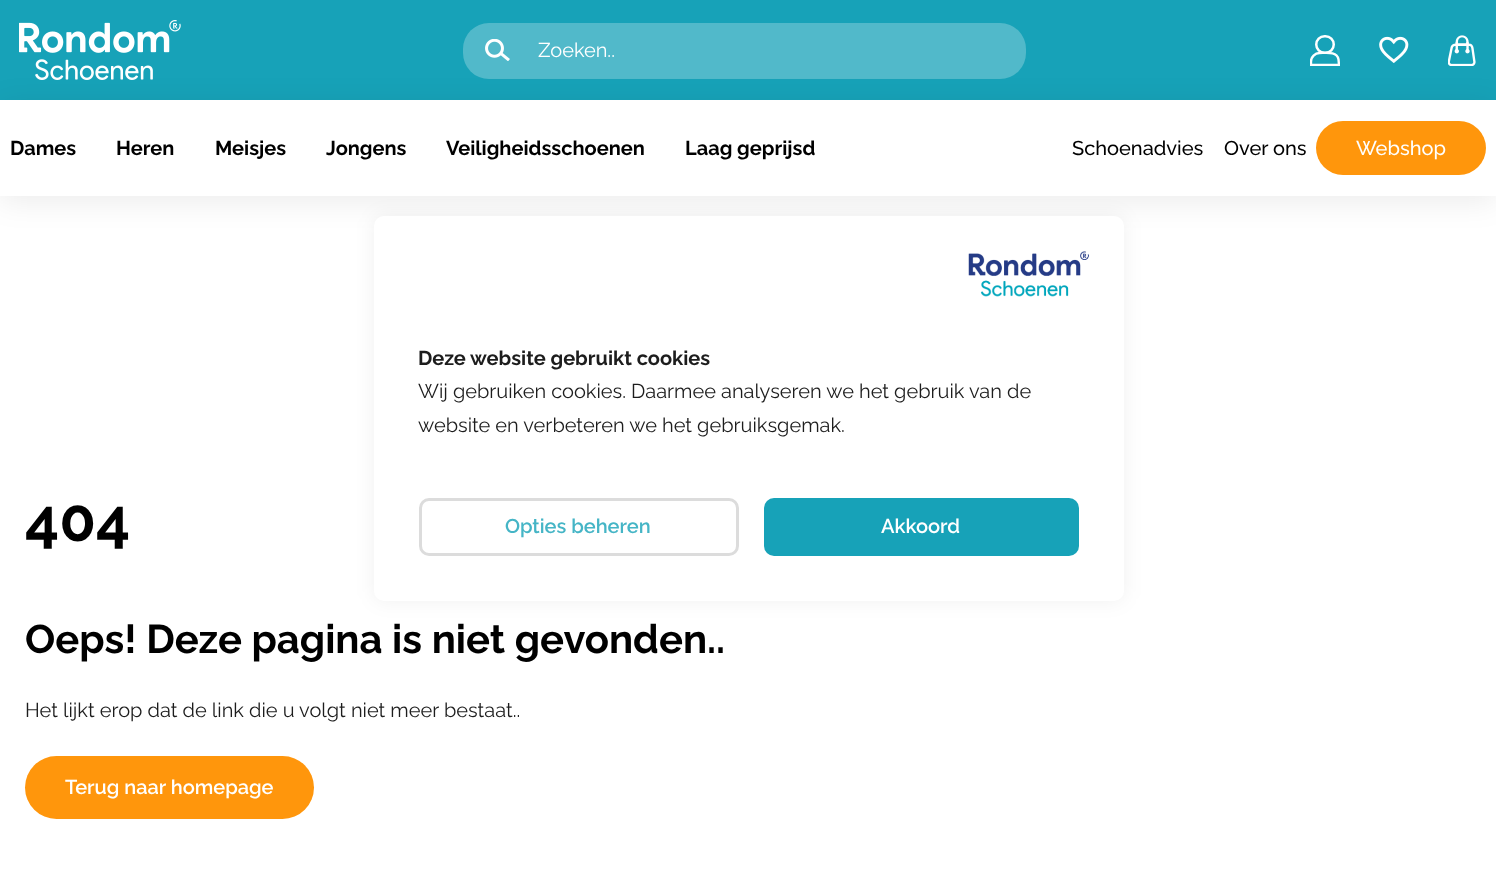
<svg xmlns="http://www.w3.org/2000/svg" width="1496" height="896">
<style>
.a{font:20px Raleway;fill:#fff}
.b{font:bold 20px Raleway;fill:#000}
.c{font:100 20px 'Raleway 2';fill:#000}
.d{font:100 20px 'Raleway 2';fill:#fff}
.e{font:bold 20px Raleway;fill:#1d1d1d}
.f{font:20px Raleway;fill:#1d1d1d}
.g{font:100 20px Raleway;fill:#45b5c6}
.h{font:100 20px Raleway;fill:#fff}
.i{font:bold 60px Raleway;fill:#000}
.j{font:bold 40px Raleway;fill:#000}
</style>
<defs>
<clipPath id="clip1"><path d="M1310 35h30v31H1310z"/></clipPath>
<clipPath id="clip2"><path d="M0 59h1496v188h-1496zm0 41h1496v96h-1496z" clip-rule="evenodd"/></clipPath>
</defs>
<rect width="100%" height="100%" fill="#fff"/>
<path fill="#17a2b8" d="M0 0h1496v100H0z"/>
<image href="1.png" x="19" y="20" width="162" height="60"/>
<image href="2.png" x="485" y="39" width="25" height="22"/>
<rect fill="#ffffff40" x="463" y="23" width="563" height="56" rx="26"/>
<g clip-path="url(#clip1)">
<path fill="none" stroke="#fff" stroke-width="2.4" d="M1319.5 53c6.5 0 17.5-2 19 6.5l.5 5.5h-28v-3.5c0-4.5 4-8.5 8.5-8.5z"/>
</g>
<rect fill="none" stroke="#fff" stroke-width="2.5" x="1316.25" y="36.25" width="17.5" height="16.5" rx="8.25"/>
<image href="3.png" x="1379" y="36" width="30" height="27"/>
<image href="4.png" x="1448" y="35" width="28" height="31"/>
<g clip-path="url(#clip2)">
<path fill="#00000014" filter="blur(15px)" d="M0 105h1496v96H0z"/>
</g>
<rect fill="#ff960c" x="1316" y="121" width="170" height="54" rx="27"/>
<rect fill="#0000000f" filter="blur(10px)" x="374" y="216" width="750" height="385" rx="10"/>
<rect fill="#fff" x="374" y="216" width="750" height="385" rx="10"/>
<image href="5.png" x="968" y="251" width="121" height="46"/>
<rect fill="none" stroke="#dcdcdc" stroke-width="3" x="420.5" y="499.5" width="317" height="55" rx="8.5"/>
<rect fill="#17a2b8" x="764" y="498" width="315" height="58" rx="10"/>
<rect fill="#ff960c" x="25" y="756" width="289" height="63" rx="31.5"/>
<text class="a" x="538" y="57">Zoeken..</text>
<text class="b" x="10" y="155">Dames</text>
<text class="b" x="116" y="155">Heren</text>
<text class="b" x="215" y="155">Meisjes</text>
<text class="b" x="326" y="155">Jongens</text>
<text class="b" x="446" y="155">Veiligheidsschoenen</text>
<text class="b" x="685" y="155">Laag geprijsd</text>
<text class="c" x="1072" y="155">Schoenadvies</text>
<text class="c" x="1224" y="155">Over ons</text>
<text class="d" x="1356" y="155">Webshop</text>
<text class="e" x="418" y="365">Deze website gebruikt cookies</text>
<text class="f" x="418" y="398">Wij gebruiken cookies. Daarmee analyseren we het gebruik van de</text>
<text class="f" x="418" y="432">website en verbeteren we het gebruiksgemak.</text>
<text class="g" x="505" y="533">Opties beheren</text>
<text class="h" x="881" y="533">Akkoord</text>
<text class="i" x="25" y="541">404</text>
<text class="j" x="25" y="653">Oeps! Deze pagina is niet gevonden..</text>
<text class="f" x="25" y="717">Het lijkt erop dat de link die u volgt niet meer bestaat..</text>
<text class="h" x="65" y="794">Terug naar homepage</text>
</svg>
